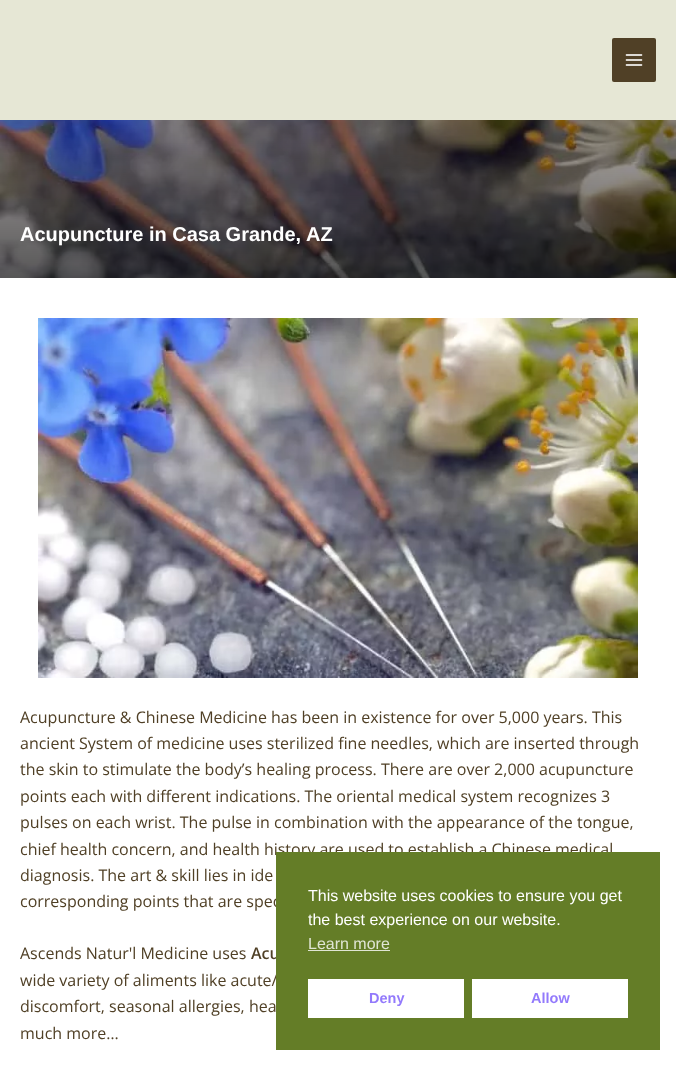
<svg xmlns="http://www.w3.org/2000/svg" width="676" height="1066">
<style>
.a{font:bold 20px Liberation Sans;fill:#fff}
.b{font:16px Open Sans;fill:#504026}
.c{font:600 16px Open Sans;fill:#504026}
.d{font:16px Liberation Sans;fill:#fff}
.e{font:16px Liberation Sans;fill:#e0e5d4}
.f{font:bold 14.5px Liberation Sans;fill:#937afc}
</style>
<rect width="100%" height="100%" fill="#fff"/>
<path fill="#e6e7d5" d="M0 0h676v120H0z"/>
<rect fill="#504026" x="612" y="38" width="44" height="44" rx="2"/>
<image href="1.png" x="625" y="54" width="18" height="12"/>
<image href="2.png" x="0" y="120" width="676" height="158"/>
<image href="3.png" x="38" y="318" width="600" height="360"/>
<text class="a" x="20" y="241">Acupuncture in Casa Grande, AZ</text>
<text class="b" x="20" y="723">Acupuncture &amp; Chinese Medicine has been in existence for over 5,000 years. This</text>
<text class="b" x="20" y="749">ancient System of medicine uses sterilized fine needles, which are inserted through</text>
<text class="b" x="20" y="775">the skin to stimulate the body’s healing process. There are over 2,000 acupuncture</text>
<text class="b" x="20" y="802">points each with different indications. The oriental medical system recognizes 3</text>
<text class="b" x="20" y="828">pulses on each wrist. The pulse in combination with the appearance of the tongue,</text>
<text class="b" x="20" y="855">chief health concern, and health history are used to establish a Chinese medical</text>
<text class="b" x="20" y="881">diagnosis. The art &amp; skill lies in ide</text>
<text class="b" x="20" y="907">corresponding points that are spec</text>
<text class="b" x="20" y="959">Ascends Natur'l Medicine uses</text>
<text class="c" x="251" y="959">Acu</text>
<text class="b" x="20" y="986">wide variety of aliments like acute/</text>
<text class="b" x="20" y="1012">discomfort, seasonal allergies, hea</text>
<text class="b" x="20" y="1039">much more…</text>
<path fill="#647d27" d="M276 852h384v198H276z"/>
<text class="d" x="308" y="901">This website uses cookies to ensure you get</text>
<text class="d" x="308" y="925">the best experience on our website.</text>
<text class="e" x="308" y="949">Learn more</text>
<path fill="#e0e5d4" d="M308 950h82v1H308z"/>
<path fill="#fff" d="M308 979h156v39H308z"/>
<text class="f" x="369" y="1003">Deny</text>
<path fill="#fff" d="M472 979h156v39H472z"/>
<text class="f" x="531" y="1003">Allow</text>
</svg>
